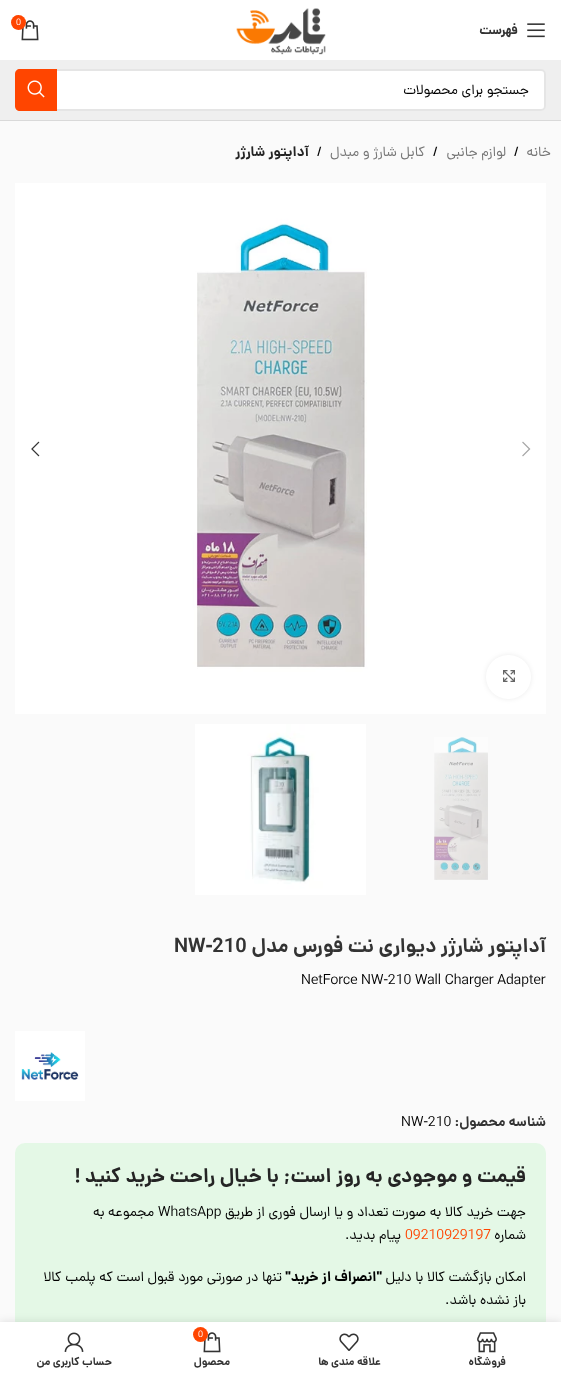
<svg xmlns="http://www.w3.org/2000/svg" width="561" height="1377">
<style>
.a{font:9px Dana;fill:#fff}
.b{font:bold 13px Dana;direction:rtl;fill:#333}
.c{font:14px Dana;direction:rtl;fill:#000}
.d{font:14px Dana;direction:rtl;fill:#767676}
.e{font:14px Dana;fill:#000}
.f{font:bold 14px Dana;direction:rtl;fill:#242424}
.g{font:bold 20px Dana;direction:rtl;fill:#333}
.h{font:bold 20px Dana;fill:#333}
.i{font:bold 14px Dana;direction:rtl;fill:#333}
.j{font:bold 20px Dana;direction:rtl;fill:#242424}
.k{font:14px Dana;fill:#ff4500}
.l{font:bold 14px Dana;direction:rtl;fill:#000}
.m{font:bold 11px Dana;direction:rtl;fill:#333}
</style>
<defs>
<clipPath id="clip1"><path d="M428 1356h118v13H428z"/></clipPath>
</defs>
<rect width="100%" height="100%" fill="#fff"/>
<image href="1.png" x="236" y="8" width="90" height="47"/>
<image href="2.png" x="21" y="20" width="18" height="21"/>
<circle fill="#ff4500" cx="18.5" cy="22.5" r="7.5"/>
<image href="3.png" x="527" y="23" width="18" height="15"/>
<path fill="#efefef" d="M0 60h561v60H0z"/>
<path fill="#d9d9d9" d="M0 120h561v1H0z"/>
<rect fill="#fff" x="15" y="69" width="531" height="42" rx="5"/>
<rect fill="none" stroke="#0000001a" stroke-width="2" x="16" y="70" width="529" height="40" rx="4"/>
<path fill="#ff4500" d="M20 69h37v42h-37c-3 0-5-2-5-5v-32c0-3 2-5 5-5z"/>
<image href="4.png" x="27" y="80" width="18" height="18"/>
<path fill="#fafafa" d="M0 121h561v1201H0z"/>
<image href="5.png" x="15" y="183" width="531" height="531"/>
<image href="6.png" x="522" y="441" width="9" height="16"/>
<image href="7.png" x="31" y="441" width="9" height="16"/>
<rect fill="#00000014" filter="blur(2.5px)" x="486" y="655" width="45" height="44" rx="22"/>
<rect fill="#fff" x="486" y="655" width="45" height="44" rx="22"/>
<image href="8.png" x="503" y="670" width="12" height="12"/>
<image href="9.png" x="434" y="737" width="54" height="143"/>
<image href="10.png" x="195" y="724" width="171" height="171"/>
<image href="11.png" x="15" y="1031" width="70" height="70"/>
<rect fill="#e4f8e6" x="15" y="1143" width="531" height="188" rx="10"/>
<path fill="#0000001f" filter="blur(4.5px)" d="M0 1322h561v55H0z"/>
<path fill="#fff" d="M0 1322h561v55H0z"/>
<image href="12.png" x="477" y="1332" width="20" height="21"/>
<image href="13.png" x="339" y="1333" width="20" height="18"/>
<image href="2.png" x="203" y="1332" width="18" height="21"/>
<circle fill="#ff4500" cx="200.5" cy="1334.5" r="7.5"/>
<image href="14.png" x="64" y="1332" width="20" height="20"/>
<text class="a" x="16" y="25">0</text>
<text class="b" x="518" y="34">فهرست</text>
<text class="c" x="529" y="94">جستجو برای محصولات</text>
<text class="d" x="551" y="156">خانه</text>
<text class="e" x="514" y="156">/</text>
<text class="d" x="506" y="156">لوازم جانبی</text>
<text class="e" x="433" y="156">/</text>
<text class="d" x="425" y="156">کابل شارژ و مبدل</text>
<text class="e" x="317" y="156">/</text>
<text class="f" x="309" y="156">آداپتور شارژر</text>
<text class="g" x="546" y="952">آداپتور شارژر دیواری نت فورس مدل</text>
<text class="h" x="174" y="952">NW-210</text>
<text class="e" x="301" y="984">NetForce NW-210 Wall Charger Adapter</text>
<text class="i" x="546" y="1126">شناسه محصول:</text>
<text class="e" x="401" y="1126">NW-210</text>
<text class="j" x="526" y="1182">قیمت و موجودی به روز است; با خیال راحت خرید کنید !</text>
<text class="c" x="526" y="1216">جهت خرید کالا به صورت تعداد و یا ارسال فوری از طریق</text>
<text class="e" x="158" y="1216">WhatsApp</text>
<text class="c" x="154" y="1216">مجموعه به</text>
<text class="c" x="526" y="1239">شماره</text>
<text class="k" x="405" y="1239">09210929197</text>
<text class="c" x="401" y="1239">پیام بدید.</text>
<text class="c" x="526" y="1281">امکان بازگشت کالا با دلیل</text>
<text class="l" x="382" y="1281">"انصراف از خرید"</text>
<text class="c" x="282" y="1281">تنها در صورتی مورد قبول است که پلمب کالا</text>
<text class="c" x="526" y="1304">باز نشده باشد.</text>
<g clip-path="url(#clip1)">
<text class="m" x="506" y="1365">فروشگاه</text>
</g>
<text class="m" x="381" y="1365">علاقه مندی ها</text>
<text class="a" x="198" y="1337">0</text>
<text class="m" x="230" y="1365">محصول</text>
<text class="m" x="112" y="1365">حساب کاربری من</text>
</svg>
